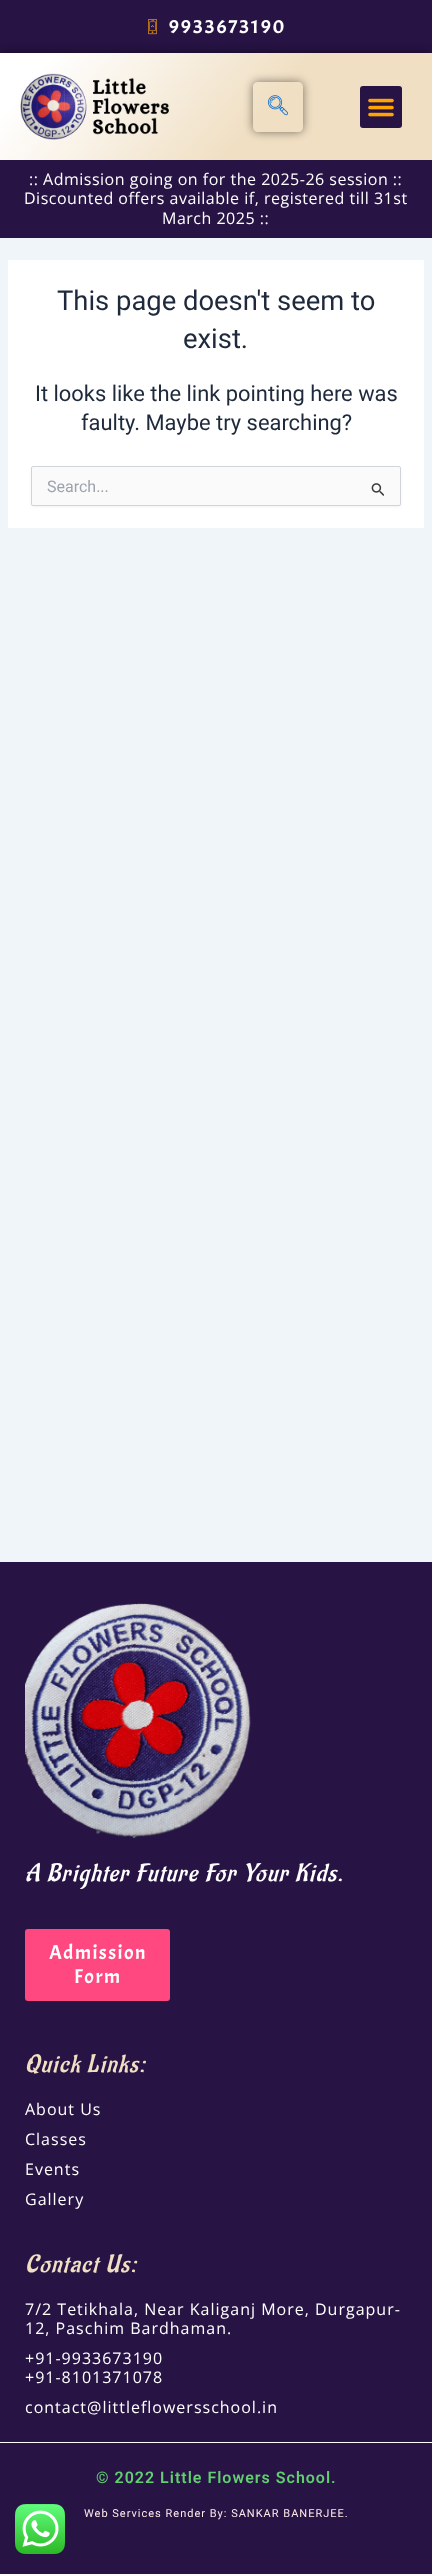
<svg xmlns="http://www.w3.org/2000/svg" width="432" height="2574">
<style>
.a{font:20px Acme;letter-spacing:2px;fill:#fff}
.b{font:16px Open Sans;letter-spacing:0.5px;fill:#fff}
.c{font:27.4px Roboto;fill:#1e293b}
.d{font:21.9px Roboto;fill:#1e293b}
.e{font:16px Roboto;fill:#9ca3af}
.f{font:italic 25px Aladin;letter-spacing:1.5px;fill:#fff}
.g{font:20px Acme;letter-spacing:1.5px;fill:#fff}
.h{font:italic 25px Aladin;letter-spacing:1.5px;fill:#f0dfc3}
.i{font:16px Open Sans;letter-spacing:1px;fill:#fff}
.j{font:600 16px Roboto;letter-spacing:1px;fill:#61ce70}
.k{font:11px Roboto;letter-spacing:1px;fill:#ffeaea}
</style>
<defs>
<linearGradient id="g1" gradientUnits="userSpaceOnUse" x1="63" y1="-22" x2="369" y2="235"><stop offset="0.1" stop-color="#fff"/><stop offset="0.6" stop-color="#f0dfc3"/></linearGradient>
<clipPath id="clip1"><path d="M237 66h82v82h-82zm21 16h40c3 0 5 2 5 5v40c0 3-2 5-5 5h-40c-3 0-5-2-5-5v-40c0-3 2-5 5-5z" clip-rule="evenodd"/></clipPath>
</defs>
<rect width="100%" height="100%" fill="#f0f5fa"/>
<path fill="#271344" d="M0 0h432v53H0z"/>
<image href="1.png" x="148" y="19" width="9" height="16"/>
<path fill="#00000080" filter="blur(5px)" d="M0 53h432v107H0z"/>
<path fill="url(#g1)" d="M0 53h432v107H0z"/>
<image href="2.png" x="20" y="73" width="149" height="67"/>
<g clip-path="url(#clip1)">
<rect fill="#00000080" filter="blur(5px)" x="253" y="82" width="50" height="50" rx="5"/>
</g>
<image href="3.png" x="268" y="95" width="20" height="21"/>
<rect fill="#271344" x="360" y="86" width="42" height="42" rx="3"/>
<image href="4.png" x="368" y="98" width="26" height="19"/>
<path fill="#271344" d="M0 160h432v78H0z"/>
<path fill="#fff" d="M8 260h416v268H8z"/>
<rect fill="#0000000d" filter="blur(1px)" x="31" y="467" width="370" height="40" rx="2"/>
<rect fill="#fafafa" stroke="#d1d5db" x="31.5" y="466.5" width="369" height="39" rx="1.5"/>
<image href="5.png" x="371" y="483" width="13" height="13"/>
<path fill="#271344" d="M0 1562h432v880H0z"/>
<image href="6.png" x="25" y="1603" width="226" height="236"/>
<rect fill="#ff4880" x="25" y="1929" width="145" height="72" rx="3"/>
<path fill="#271344" d="M0 2443h432v131H0z"/>
<path fill="#fff" d="M0 2442h432v1H0z"/>
<image href="7.png" x="15" y="2504" width="50" height="50"/>
<text class="a" x="169" y="33">9933673190</text>
<text class="b" x="29" y="185">:: Admission going on for the 2025-26 session ::</text>
<text class="b" x="24" y="204">Discounted offers available if, registered till 31st</text>
<text class="b" x="162" y="224">March 2025 ::</text>
<text class="c" x="57" y="310">This page doesn't seem to</text>
<text class="c" x="183" y="348">exist.</text>
<text class="d" x="35" y="401">It looks like the link pointing here was</text>
<text class="d" x="81" y="430">faulty. Maybe try searching?</text>
<text class="e" x="47" y="492">Search...</text>
<text class="f" x="25" y="1881">A Brighter Future For Your Kids.</text>
<text class="g" x="49" y="1959">Admission</text>
<text class="g" x="74" y="1983">Form</text>
<text class="h" x="25" y="2072">Quick Links:</text>
<text class="i" x="25" y="2115">About Us</text>
<text class="i" x="25" y="2145">Classes</text>
<text class="i" x="25" y="2175">Events</text>
<text class="i" x="25" y="2205">Gallery</text>
<text class="h" x="25" y="2272">Contact Us:</text>
<text class="i" x="25" y="2315">7/2 Tetikhala, Near Kaliganj More, Durgapur-</text>
<text class="i" x="25" y="2334">12, Paschim Bardhaman.</text>
<text class="i" x="25" y="2364">+91-9933673190</text>
<text class="i" x="25" y="2383">+91-8101371078</text>
<text class="i" x="25" y="2413">contact@littleflowersschool.in</text>
<text class="j" x="96" y="2483">© 2022 Little Flowers School.</text>
<text class="k" x="84" y="2517">Web Services Render By: SANKAR BANERJEE.</text>
</svg>
